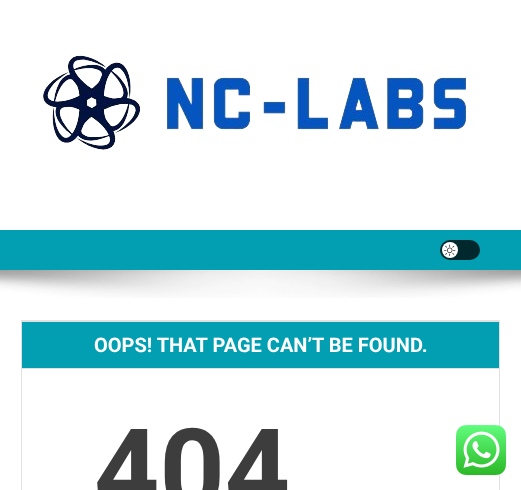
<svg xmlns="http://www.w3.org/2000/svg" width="521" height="490">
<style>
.a{font:bold 20px Roboto;fill:#fff}
.b{font:bold 114px Roboto;fill:#3d3d3d}
</style>
<rect width="100%" height="100%" fill="#fff"/>
<image href="1.png" x="43" y="55" width="423" height="95"/>
<path fill="#029fb2" d="M0 230h521v40H0z"/>
<rect fill="#01282d" x="440" y="240" width="40" height="20" rx="10"/>
<circle fill="#fff" cx="450" cy="250" r="8"/>
<image href="2.png" x="444" y="244" width="12" height="12"/>
<image href="3.png" x="0" y="270" width="521" height="28"/>
<path fill="none" stroke="#e1e1e1" d="M21.5 320.5h478v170H21.5z"/>
<path fill="#029fb2" d="M22 322h477v46H22z"/>
<path fill="#e1e1e1" d="M22 321h477v1H22z"/>
<path fill="#e1e1e1" d="M22 368h477v1H22z"/>
<image href="4.png" x="456" y="425" width="50" height="50"/>
<text class="a" x="94" y="352">OOPS! THAT PAGE CAN’T BE FOUND.</text>
<text class="b" x="94" y="510">404</text>
</svg>
